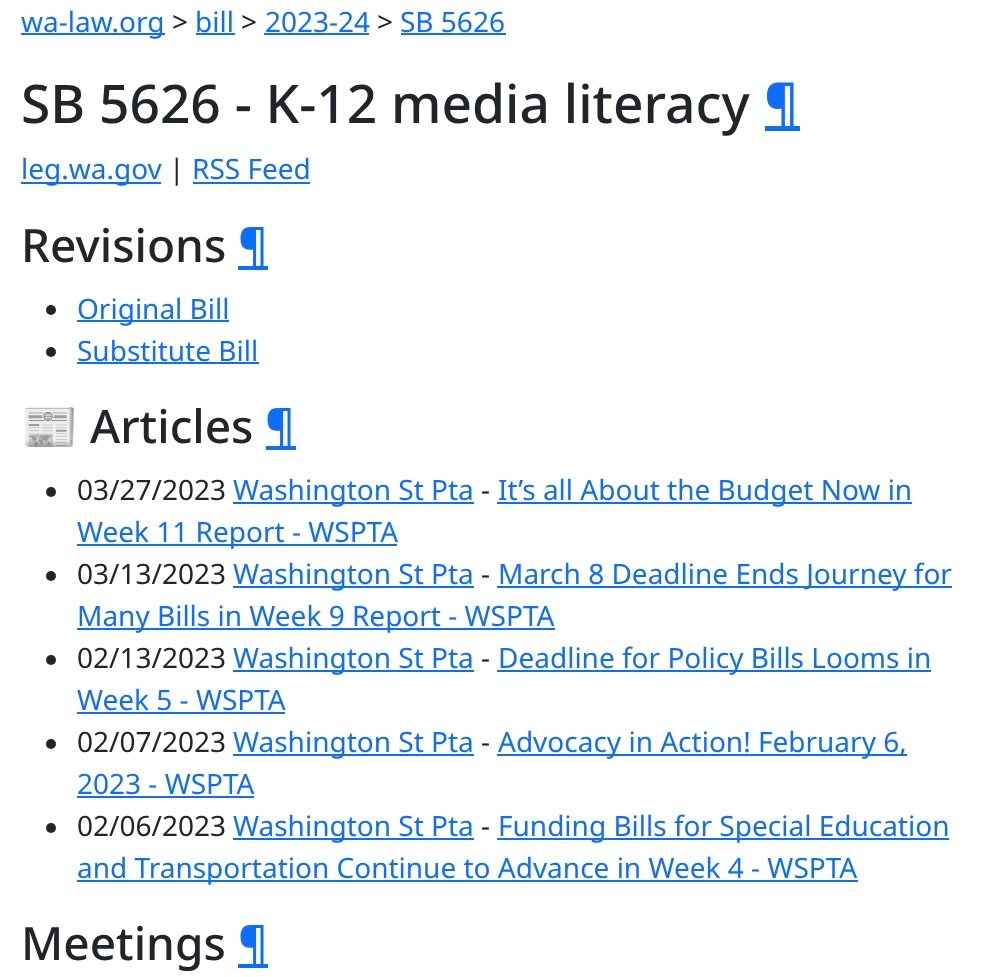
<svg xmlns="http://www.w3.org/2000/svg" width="986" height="977">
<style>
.a{font:28px Noto Sans;fill:#0d6efd}
.b{font:28px Noto Sans;fill:#212529}
.c{font:500 53.25px Noto Sans;fill:#212529}
.d{font:500 53.25px Noto Sans;fill:#0d6efd}
.e{font:500 46px Noto Sans;fill:#212529}
.f{font:500 46px Noto Sans;fill:#0d6efd}
.g{font:46px Noto Color Emoji;fill:#212529}
</style>
<rect width="100%" height="100%" fill="#fff"/>
<path fill="#0d6efd" d="M21 33h144v2H21z"/>
<path fill="#0d6efd" d="M196 33h39v2H196z"/>
<path fill="#0d6efd" d="M264 33h105v2H264z"/>
<path fill="#0d6efd" d="M401 33h105v2H401z"/>
<path fill="#0d6efd" d="M765 126h35v5H765z"/>
<path fill="#0d6efd" d="M21 182h140v2H21z"/>
<path fill="#0d6efd" d="M193 182h117v2H193z"/>
<path fill="#0d6efd" d="M238 266h30v4H238z"/>
<circle fill="#212529" cx="51" cy="310" r="5"/>
<path fill="#0d6efd" d="M77 320h152v2H77z"/>
<circle fill="#212529" cx="51" cy="352" r="5"/>
<path fill="#0d6efd" d="M77 362h182v2H77z"/>
<path fill="#0d6efd" d="M266 446h30v4H266z"/>
<circle fill="#212529" cx="51" cy="492" r="5"/>
<path fill="#0d6efd" d="M233 502h241v2H233z"/>
<path fill="#0d6efd" d="M497 502h415v2H497z"/>
<path fill="#0d6efd" d="M77 544h320v2H77z"/>
<circle fill="#212529" cx="51" cy="576" r="5"/>
<path fill="#0d6efd" d="M233 586h241v2H233z"/>
<path fill="#0d6efd" d="M497 586h455v2H497z"/>
<path fill="#0d6efd" d="M77 628h478v2H77z"/>
<circle fill="#212529" cx="51" cy="660" r="5"/>
<path fill="#0d6efd" d="M233 670h241v2H233z"/>
<path fill="#0d6efd" d="M497 670h434v2H497z"/>
<path fill="#0d6efd" d="M77 712h208v2H77z"/>
<circle fill="#212529" cx="51" cy="744" r="5"/>
<path fill="#0d6efd" d="M233 754h241v2H233z"/>
<path fill="#0d6efd" d="M497 754h410v2H497z"/>
<path fill="#0d6efd" d="M77 796h177v2H77z"/>
<circle fill="#212529" cx="51" cy="828" r="5"/>
<path fill="#0d6efd" d="M233 838h241v2H233z"/>
<path fill="#0d6efd" d="M497 838h452v2H497z"/>
<path fill="#0d6efd" d="M77 880h781v2H77z"/>
<path fill="#0d6efd" d="M238 964h30v4H238z"/>
<text class="a" x="21" y="32">wa-law.org</text>
<text class="b" x="172" y="32">&gt;</text>
<text class="a" x="195" y="32">bill</text>
<text class="b" x="241" y="32">&gt;</text>
<text class="a" x="265" y="32">2023-24</text>
<text class="b" x="377" y="32">&gt;</text>
<text class="a" x="400" y="32">SB 5626</text>
<text class="c" x="21" y="123">SB 5626 - K-12 media literacy</text>
<text class="d" x="764" y="123">¶</text>
<text class="a" x="21" y="179">leg.wa.gov</text>
<text class="b" x="169" y="179">|</text>
<text class="a" x="192" y="179">RSS Feed</text>
<text class="e" x="21" y="262">Revisions</text>
<text class="f" x="238" y="262">¶</text>
<text class="a" x="77" y="319">Original Bill</text>
<text class="a" x="77" y="361">Substitute Bill</text>
<text class="g" x="21" y="443">📰</text>
<text class="e" x="90" y="443">Articles</text>
<text class="f" x="265" y="443">¶</text>
<text class="b" x="77" y="500">03/27/2023</text>
<text class="a" x="233" y="500">Washington St Pta</text>
<text class="b" x="481" y="500">-</text>
<text class="a" x="498" y="500">It’s all About the Budget Now in</text>
<text class="a" x="77" y="542">Week 11 Report - WSPTA</text>
<text class="b" x="77" y="584">03/13/2023</text>
<text class="a" x="233" y="584">Washington St Pta</text>
<text class="b" x="481" y="584">-</text>
<text class="a" x="498" y="584">March 8 Deadline Ends Journey for</text>
<text class="a" x="77" y="626">Many Bills in Week 9 Report - WSPTA</text>
<text class="b" x="77" y="668">02/13/2023</text>
<text class="a" x="233" y="668">Washington St Pta</text>
<text class="b" x="481" y="668">-</text>
<text class="a" x="498" y="668">Deadline for Policy Bills Looms in</text>
<text class="a" x="77" y="710">Week 5 - WSPTA</text>
<text class="b" x="77" y="752">02/07/2023</text>
<text class="a" x="233" y="752">Washington St Pta</text>
<text class="b" x="481" y="752">-</text>
<text class="a" x="498" y="752">Advocacy in Action! February 6,</text>
<text class="a" x="77" y="794">2023 - WSPTA</text>
<text class="b" x="77" y="836">02/06/2023</text>
<text class="a" x="233" y="836">Washington St Pta</text>
<text class="b" x="481" y="836">-</text>
<text class="a" x="498" y="836">Funding Bills for Special Education</text>
<text class="a" x="77" y="878">and Transportation Continue to Advance in Week 4 - WSPTA</text>
<text class="e" x="21" y="960">Meetings</text>
<text class="f" x="238" y="960">¶</text>
</svg>
